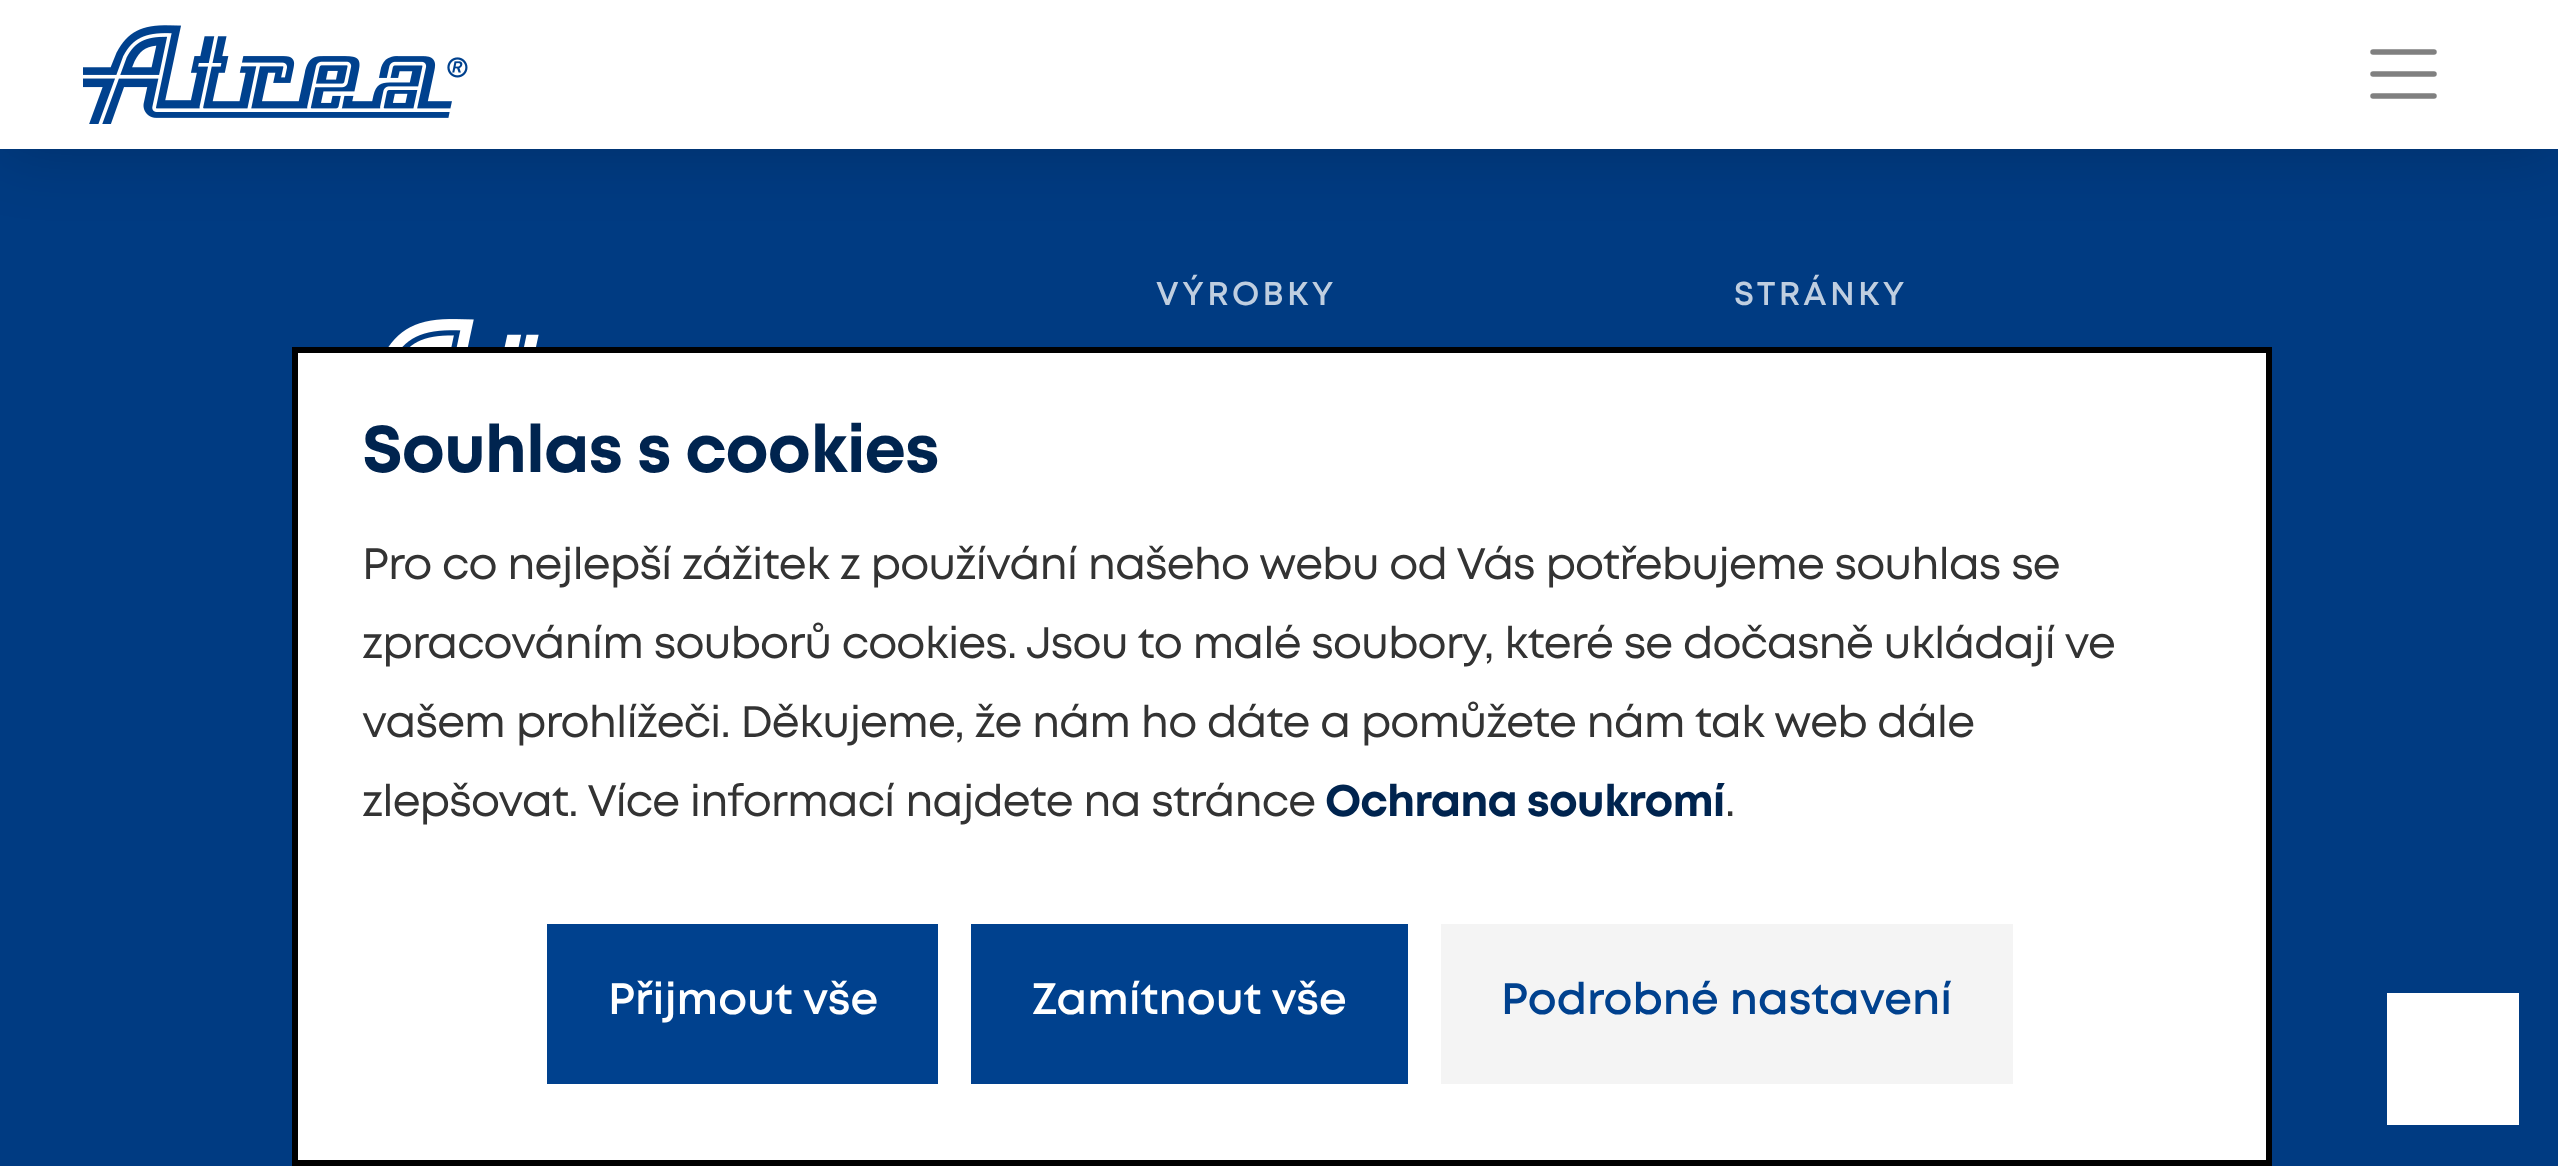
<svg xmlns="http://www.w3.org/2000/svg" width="2558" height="1166">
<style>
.a{font:600 33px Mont;letter-spacing:3.25px;fill:#bfcee0}
.b{font:bold 66px Mont;letter-spacing:-1px;fill:#00244f}
.c{font:44px Mont;letter-spacing:-0.88px;fill:#333}
.d{font:bold 44px Mont;letter-spacing:-0.88px;fill:#00244f}
.e{font:600 44px Mont;fill:#fff}
.f{font:600 44px Mont;fill:#00418e}
</style>
<rect width="100%" height="100%" fill="#003b82"/>
<path fill="#00000033" filter="blur(34.5px)" d="M0 0h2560v149H0z"/>
<path fill="#fff" d="M0 0h2558v149H0z"/>
<image href="1.png" x="83" y="25" width="385" height="99"/>
<path fill="none" stroke="#808080" stroke-width="5.5" stroke-linecap="round" d="M2373 52h61m-61 22h61m-61 22h61"/>
<image href="2.png" x="388" y="319" width="151" height="28"/>
<path fill="#fff" stroke="#000" stroke-width="6" d="M295 350h1974v813H295z"/>
<path fill="#00418e" d="M547 924h391v160H547z"/>
<path fill="#00418e" d="M971 924h437v160H971z"/>
<path fill="#f4f4f4" d="M1441 924h572v160H1441z"/>
<path fill="#fff" d="M2387 993h132v132H2387z"/>
<text class="a" x="1156" y="305">VÝROBKY</text>
<text class="a" x="1734" y="305">STRÁNKY</text>
<text class="b" x="362" y="472">Souhlas s cookies</text>
<text class="c" x="362" y="579">Pro co nejlepší zážitek z používání našeho webu od Vás potřebujeme souhlas se</text>
<text class="c" x="362" y="658">zpracováním souborů cookies. Jsou to malé soubory, které se dočasně ukládají ve</text>
<text class="c" x="362" y="737">vašem prohlížeči. Děkujeme, že nám ho dáte a pomůžete nám tak web dále</text>
<text class="c" x="362" y="816">zlepšovat. Více informací najdete na stránce</text>
<text class="d" x="1325" y="816">Ochrana soukromí</text>
<text class="c" x="1725" y="816">.</text>
<text class="e" x="608" y="1014">Přijmout vše</text>
<text class="e" x="1032" y="1014">Zamítnout vše</text>
<text class="f" x="1501" y="1014">Podrobné nastavení</text>
</svg>
